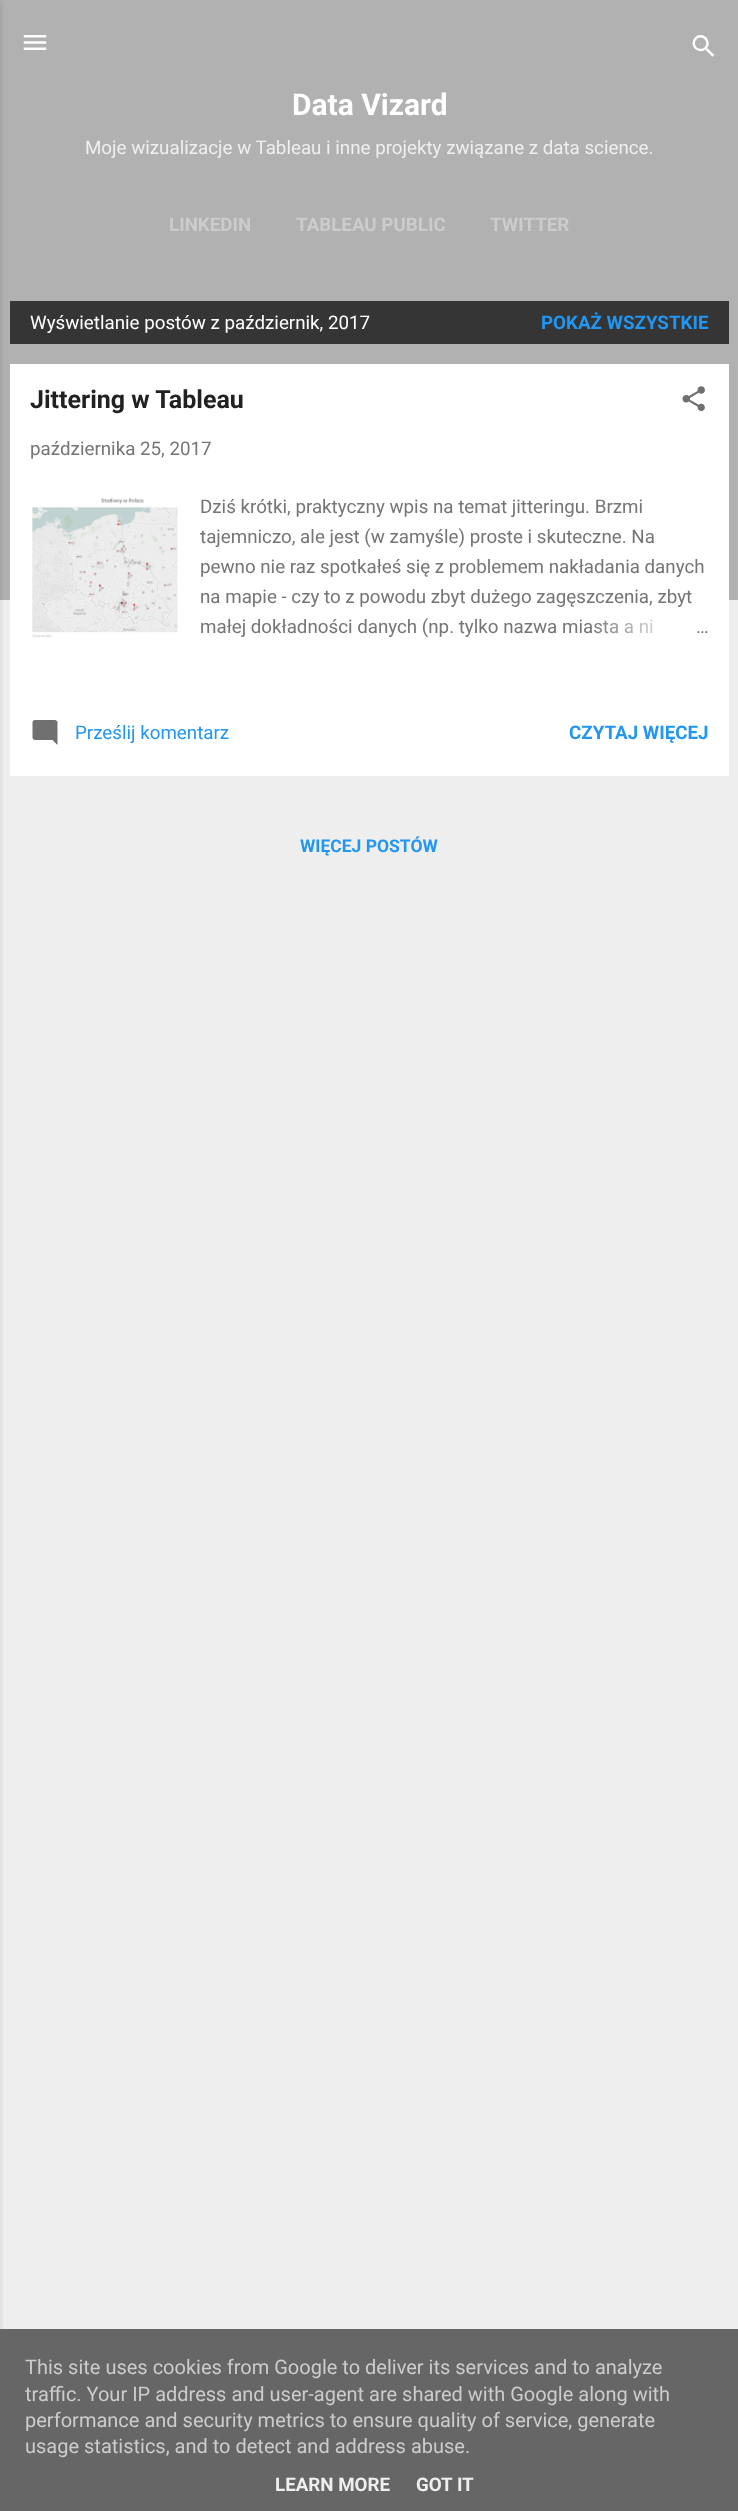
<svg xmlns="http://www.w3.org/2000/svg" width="738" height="2511">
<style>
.a{font:bold 30px Roboto;fill:#fff}
.b{font:18.75px Roboto;fill:#efefef}
.c{font:bold 18.75px Roboto;fill:#ccc}
.d{font:18.75px Roboto;fill:#fff}
.e{font:bold 18.75px Roboto;fill:#2196f3}
.f{font:bold 25px Roboto;fill:#212121}
.g{font:18.75px Roboto;fill:#757575}
.h{font:18.75px Roboto;fill:#2196f3}
.i{font:bold 17.5px Roboto;fill:#2196f3}
.j{font:20px Roboto;fill:#ccc}
.k{font:bold 18.75px Roboto;fill:#efefef}
</style>
<defs>
<linearGradient id="g1" gradientUnits="userSpaceOnUse" x1="709" y1="628" x2="589" y2="628"><stop offset="0" stop-color="#fff"/><stop offset="0.2" stop-color="#fff"/><stop offset="1" stop-color="#fff" stop-opacity="0"/></linearGradient>
</defs>
<rect width="100%" height="100%" fill="#eee"/>
<path fill="#b1b1b1" d="M0 0h738v600H0z"/>
<path fill="#0000001a" filter="blur(2px)" d="M-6 1h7v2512H-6z"/>
<image href="1.png" x="23" y="35" width="24" height="15"/>
<image href="2.png" x="692" y="35" width="23" height="22"/>
<path fill="#353535" d="M10 301h719v43H10z"/>
<path fill="#fff" d="M10 364h719v412H10z"/>
<image href="3.png" x="682" y="386" width="23" height="26"/>
<image href="4.png" x="32" y="498" width="146" height="140"/>
<image href="5.png" x="32" y="720" width="26" height="25"/>
<path fill="#666" d="M0 2329h738v182H0z"/>
<text class="a" x="292" y="115">Data Vizard</text>
<text class="b" x="85" y="154">Moje wizualizacje w Tableau i inne projekty związane z data science.</text>
<text class="c" x="169" y="231">LINKEDIN</text>
<text class="c" x="296" y="231">TABLEAU PUBLIC</text>
<text class="c" x="490" y="231">TWITTER</text>
<text class="d" x="30" y="329">Wyświetlanie postów z październik, 2017</text>
<text class="e" x="541" y="329">POKAŻ WSZYSTKIE</text>
<text class="f" x="30" y="408">Jittering w Tableau</text>
<text class="g" x="30" y="455">października 25, 2017</text>
<text class="g" x="200" y="513">Dziś krótki, praktyczny wpis na temat jitteringu. Brzmi</text>
<text class="g" x="200" y="543">tajemniczo, ale jest (w zamyśle) proste i skuteczne. Na</text>
<text class="g" x="200" y="573">pewno nie raz spotkałeś się z problemem nakładania danych</text>
<text class="g" x="200" y="603">na mapie - czy to z powodu zbyt dużego zagęszczenia, zbyt</text>
<text class="g" x="200" y="633">małej dokładności danych (np. tylko nazwa miasta a ni</text>
<path fill="url(#g1)" d="M591 619h62v15H591z"/>
<text class="g" x="696" y="633">…</text>
<text class="h" x="75" y="739">Prześlij komentarz</text>
<text class="e" x="569" y="739">CZYTAJ WIĘCEJ</text>
<text class="i" x="300" y="852">WIĘCEJ POSTÓW</text>
<text class="j" x="25" y="2374">This site uses cookies from Google to deliver its services and to analyze</text>
<text class="j" x="25" y="2401">traffic. Your IP address and user-agent are shared with Google along with</text>
<text class="j" x="25" y="2427">performance and security metrics to ensure quality of service, generate</text>
<text class="j" x="25" y="2453">usage statistics, and to detect and address abuse.</text>
<text class="k" x="275" y="2491">LEARN MORE</text>
<text class="k" x="416" y="2491">GOT IT</text>
</svg>
